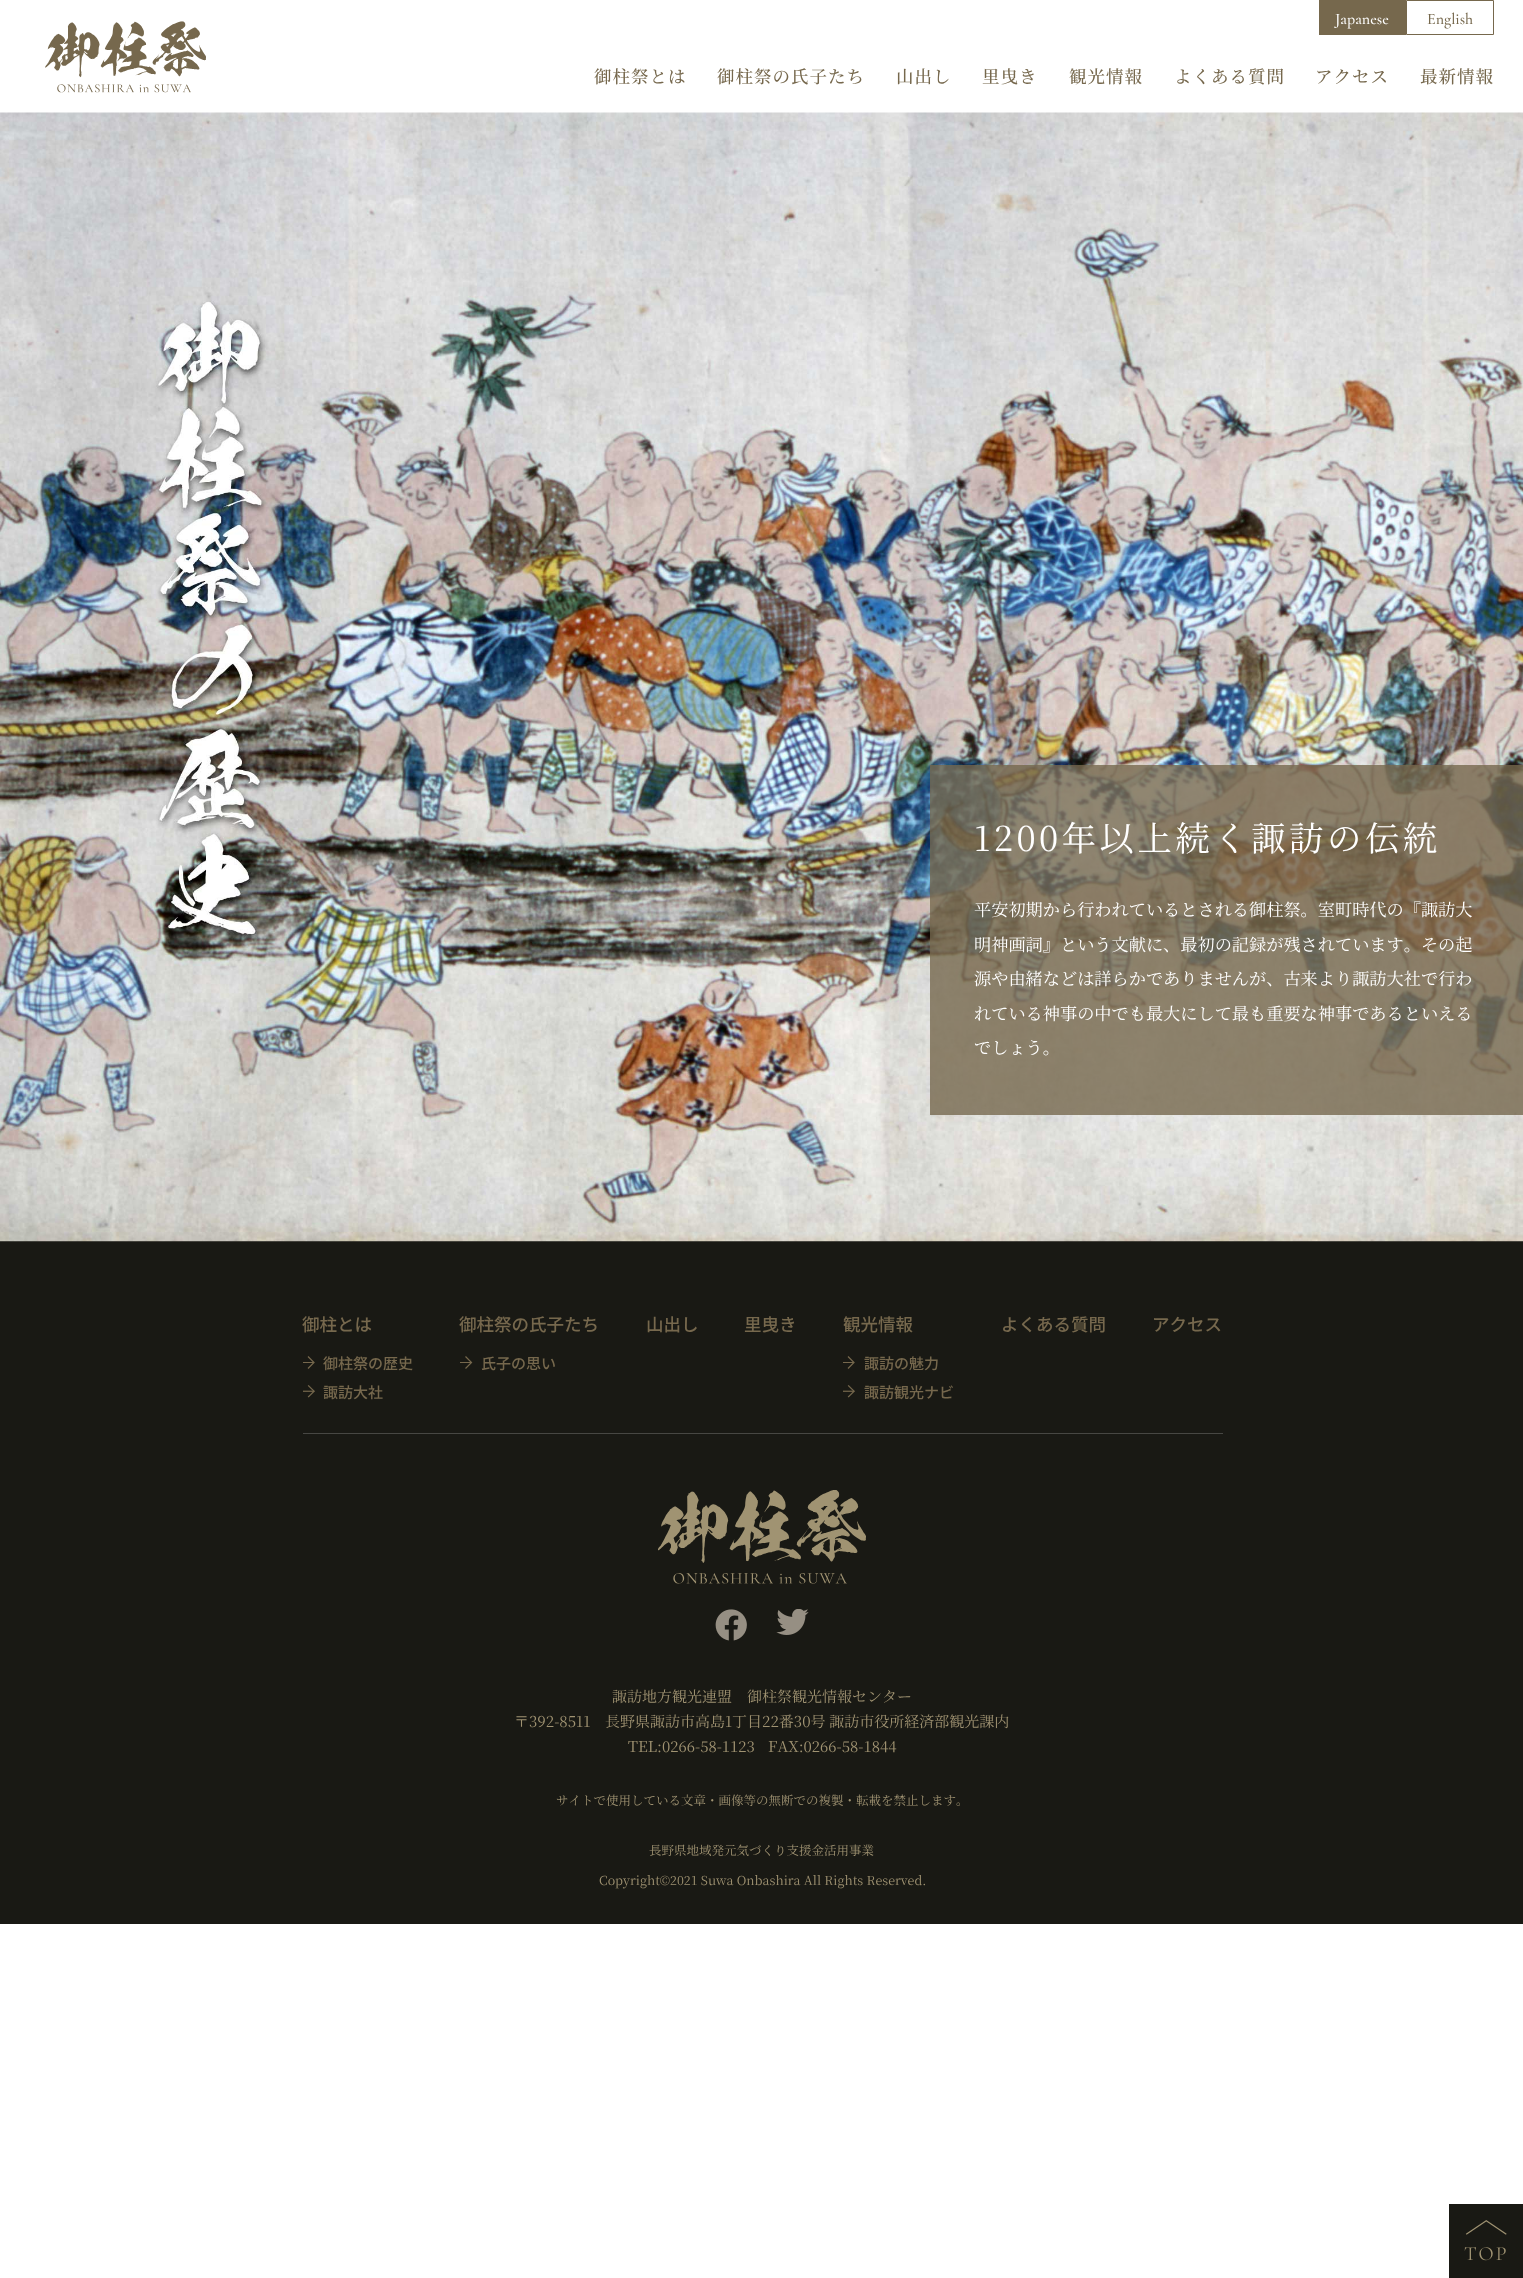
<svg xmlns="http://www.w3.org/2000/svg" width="1523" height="2278">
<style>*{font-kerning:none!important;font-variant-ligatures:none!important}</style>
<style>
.a{font:500 16px Cormorant Garamond;fill:#fff}
.b{font:500 16px Cormorant Garamond;fill:#76684d}
.c{font:500 17.5px Noto Serif JP;letter-spacing:1px;fill:#76684d}
.d{font:34.4px Noto Serif JP;letter-spacing:3.5px;fill:#fff}
.e{font:17.2px Noto Serif JP;fill:#fff}
.f{font:500 17.5px Noto Sans JP;fill:#76684d}
.g{font:500 15px Noto Sans JP;fill:#76684d}
.h{font:15px Noto Serif JP;fill:#a09372}
.i{font:12.5px Noto Serif JP;fill:#a09372}
</style>
<rect width="100%" height="100%" fill="#fff"/>
<image href="1.png" x="45" y="21" width="161" height="72"/>
<path fill="#76684d" d="M1319 0h87v35H1319z"/>
<path fill="none" stroke="#76684d" d="M1406.5 0.5h87v34H1406.5z"/>
<path fill="#191914" d="M0 1241h1523v683H0z"/>
<image href="2.png" x="0" y="112" width="1523" height="1130"/>
<path fill="#76684dcc" d="M930 765h593v350H930z"/>
<path fill="#76684d" d="M303 1362h11v1H303z"/>
<path fill="none" stroke="#76684d" stroke-width="1.2" d="M308 1356.5l6 6l-6 6"/>
<image href="3.png" x="303" y="1385" width="12" height="13"/>
<path fill="#76684d" d="M460 1362h12v1H460z"/>
<path fill="none" stroke="#76684d" stroke-width="1.2" d="M465.5 1356.5l6 6l-6 6"/>
<path fill="#76684d" d="M843 1362h11v1H843z"/>
<path fill="none" stroke="#76684d" stroke-width="1.2" d="M848 1356.5l6 6l-6 6"/>
<image href="3.png" x="843" y="1385" width="12" height="13"/>
<path fill="#474743" d="M303 1433h920v1H303z"/>
<image href="4.png" x="658" y="1490" width="208" height="94"/>
<image href="5.png" x="715" y="1609" width="32" height="32"/>
<image href="6.png" x="776" y="1609" width="33" height="26"/>
<image href="7.png" x="1449" y="2204" width="74" height="74"/>
<text class="a" x="1335" y="24">Japanese</text>
<text class="b" x="1427" y="24">English</text>
<text class="c" x="594" y="83">御柱祭とは</text>
<text class="c" x="717" y="83">御柱祭の氏子たち</text>
<text class="c" x="896" y="83">山出し</text>
<text class="c" x="982" y="83">里曳き</text>
<text class="c" x="1069" y="83">観光情報</text>
<text class="c" x="1174" y="83">よくある質問</text>
<text class="c" x="1315" y="83">アクセス</text>
<text class="c" x="1420" y="83">最新情報</text>
<text class="d" x="974" y="851">1200年以上続く諏訪の伝統</text>
<text class="e" x="974" y="916">平安初期から行われているとされる御柱祭。室町時代の『諏訪大</text>
<text class="e" x="974" y="951">明神画詞』という文献に、最初の記録が残されています。その起</text>
<text class="e" x="974" y="985">源や由緒などは詳らかでありませんが、古来より諏訪大社で行わ</text>
<text class="e" x="974" y="1020">れている神事の中でも最大にして最も重要な神事であるといえる</text>
<text class="e" x="974" y="1054">でしょう。</text>
<text class="f" x="302" y="1331">御柱とは</text>
<text class="g" x="323" y="1369">御柱祭の歴史</text>
<text class="g" x="323" y="1398">諏訪大社</text>
<text class="f" x="459" y="1331">御柱祭の氏子たち</text>
<text class="g" x="481" y="1369">氏子の思い</text>
<text class="f" x="646" y="1331">山出し</text>
<text class="f" x="744" y="1331">里曳き</text>
<text class="f" x="843" y="1331">観光情報</text>
<text class="g" x="864" y="1369">諏訪の魅力</text>
<text class="g" x="864" y="1398">諏訪観光ナビ</text>
<text class="f" x="1001" y="1331">よくある質問</text>
<text class="f" x="1152" y="1331">アクセス</text>
<text class="h" x="612" y="1702">諏訪地方観光連盟</text>
<text class="h" x="747" y="1702">御柱祭観光情報センター</text>
<text class="h" x="514" y="1727">〒392-8511</text>
<text class="h" x="605" y="1727">長野県諏訪市高島1丁目22番30号 諏訪市役所経済部観光課内</text>
<text class="h" x="628" y="1752">TEL:0266-58-1123</text>
<text class="h" x="768" y="1752">FAX:0266-58-1844</text>
<text class="i" x="556" y="1805">サイトで使用している文章・画像等の無断での複製・転載を禁止します。</text>
<text class="i" x="649" y="1855">長野県地域発元気づくり支援金活用事業</text>
<text class="i" x="599" y="1885">Copyright©2021 Suwa Onbashira All Rights Reserved.</text>
</svg>
